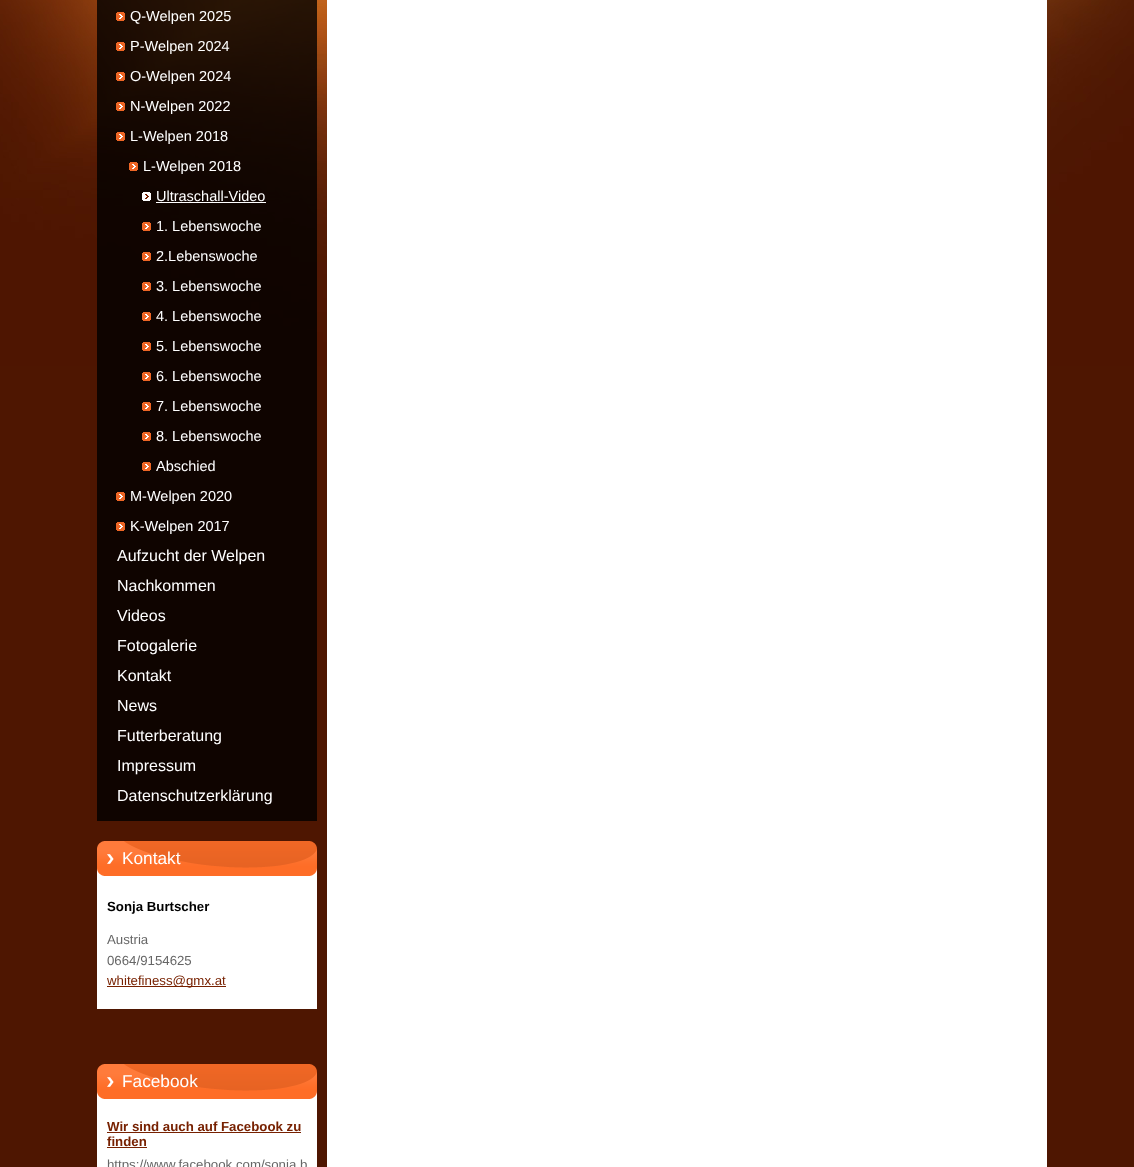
<svg xmlns="http://www.w3.org/2000/svg" width="1134" height="1167">
<style>
.a{font:14.5px Liberation Sans;fill:#fff}
.b{font:16px Liberation Sans;fill:#fff}
.c{font:17.25px Liberation Sans;fill:#fff}
.d{font:bold 13.25px Liberation Sans;fill:#000}
.e{font:13.25px Liberation Sans;fill:#666}
.f{font:13.25px Liberation Sans;fill:#772101}
.g{font:bold 13.25px Liberation Sans;fill:#772101}
</style>
<defs>
<clipPath id="clip1"><path d="M107 1119h200v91H107z"/></clipPath>
</defs>
<rect width="100%" height="100%" fill="#4e1601"/>
<image href="1.png" x="0" y="0" width="1134" height="366"/>
<path fill="#fff" d="M327 0h720v1167H327z"/>
<path fill="#000000cc" d="M97 0h220v821H97z"/>
<image href="2.png" x="116" y="12" width="9" height="9"/>
<image href="3.png" x="116" y="42" width="9" height="9"/>
<image href="4.png" x="116" y="72" width="9" height="9"/>
<image href="5.png" x="116" y="102" width="9" height="9"/>
<image href="6.png" x="116" y="132" width="9" height="9"/>
<image href="7.png" x="129" y="162" width="9" height="9"/>
<image href="8.png" x="142" y="192" width="9" height="9"/>
<path fill="#fff" d="M156 202h110v1H156z"/>
<image href="9.png" x="142" y="222" width="9" height="9"/>
<image href="10.png" x="142" y="252" width="9" height="9"/>
<image href="10.png" x="142" y="282" width="9" height="9"/>
<image href="10.png" x="142" y="312" width="9" height="9"/>
<image href="10.png" x="142" y="342" width="9" height="9"/>
<image href="10.png" x="142" y="372" width="9" height="9"/>
<image href="10.png" x="142" y="402" width="9" height="9"/>
<image href="10.png" x="142" y="432" width="9" height="9"/>
<image href="10.png" x="142" y="462" width="9" height="9"/>
<image href="10.png" x="116" y="492" width="9" height="9"/>
<image href="10.png" x="116" y="522" width="9" height="9"/>
<path fill="#fff" d="M97 876h220v133H97z"/>
<image href="11.png" x="97" y="841" width="220" height="35"/>
<path fill="#772101" d="M107 986h119v1H107z"/>
<path fill="#fff" d="M97 1099h220v68H97z"/>
<image href="11.png" x="97" y="1064" width="220" height="35"/>
<path fill="#772101" d="M107 1132h194v1H107z"/>
<path fill="#772101" d="M107 1147h40v1H107z"/>
<text class="a" x="130" y="21">Q-Welpen 2025</text>
<text class="a" x="130" y="51">P-Welpen 2024</text>
<text class="a" x="130" y="81">O-Welpen 2024</text>
<text class="a" x="130" y="111">N-Welpen 2022</text>
<text class="a" x="130" y="141">L-Welpen 2018</text>
<text class="a" x="143" y="171">L-Welpen 2018</text>
<text class="a" x="156" y="201">Ultraschall-Video</text>
<text class="a" x="156" y="231">1. Lebenswoche</text>
<text class="a" x="156" y="261">2.Lebenswoche</text>
<text class="a" x="156" y="291">3. Lebenswoche</text>
<text class="a" x="156" y="321">4. Lebenswoche</text>
<text class="a" x="156" y="351">5. Lebenswoche</text>
<text class="a" x="156" y="381">6. Lebenswoche</text>
<text class="a" x="156" y="411">7. Lebenswoche</text>
<text class="a" x="156" y="441">8. Lebenswoche</text>
<text class="a" x="156" y="471">Abschied</text>
<text class="a" x="130" y="501">M-Welpen 2020</text>
<text class="a" x="130" y="531">K-Welpen 2017</text>
<text class="b" x="117" y="561">Aufzucht der Welpen</text>
<text class="b" x="117" y="591">Nachkommen</text>
<text class="b" x="117" y="621">Videos</text>
<text class="b" x="117" y="651">Fotogalerie</text>
<text class="b" x="117" y="681">Kontakt</text>
<text class="b" x="117" y="711">News</text>
<text class="b" x="117" y="741">Futterberatung</text>
<text class="b" x="117" y="771">Impressum</text>
<text class="b" x="117" y="801">Datenschutzerklärung</text>
<text class="c" x="122" y="864">Kontakt</text>
<text class="d" x="107" y="911">Sonja Burtscher</text>
<text class="e" x="107" y="944">Austria</text>
<text class="e" x="107" y="965">0664/9154625</text>
<text class="f" x="107" y="985">whitefiness@gmx.at</text>
<text class="c" x="122" y="1087">Facebook</text>
<text class="g" x="107" y="1131">Wir sind auch auf Facebook zu</text>
<text class="g" x="107" y="1146">finden</text>
<g clip-path="url(#clip1)">
<text class="e" x="107" y="1169">https://www.facebook.com/sonja.b</text>
</g>
</svg>
